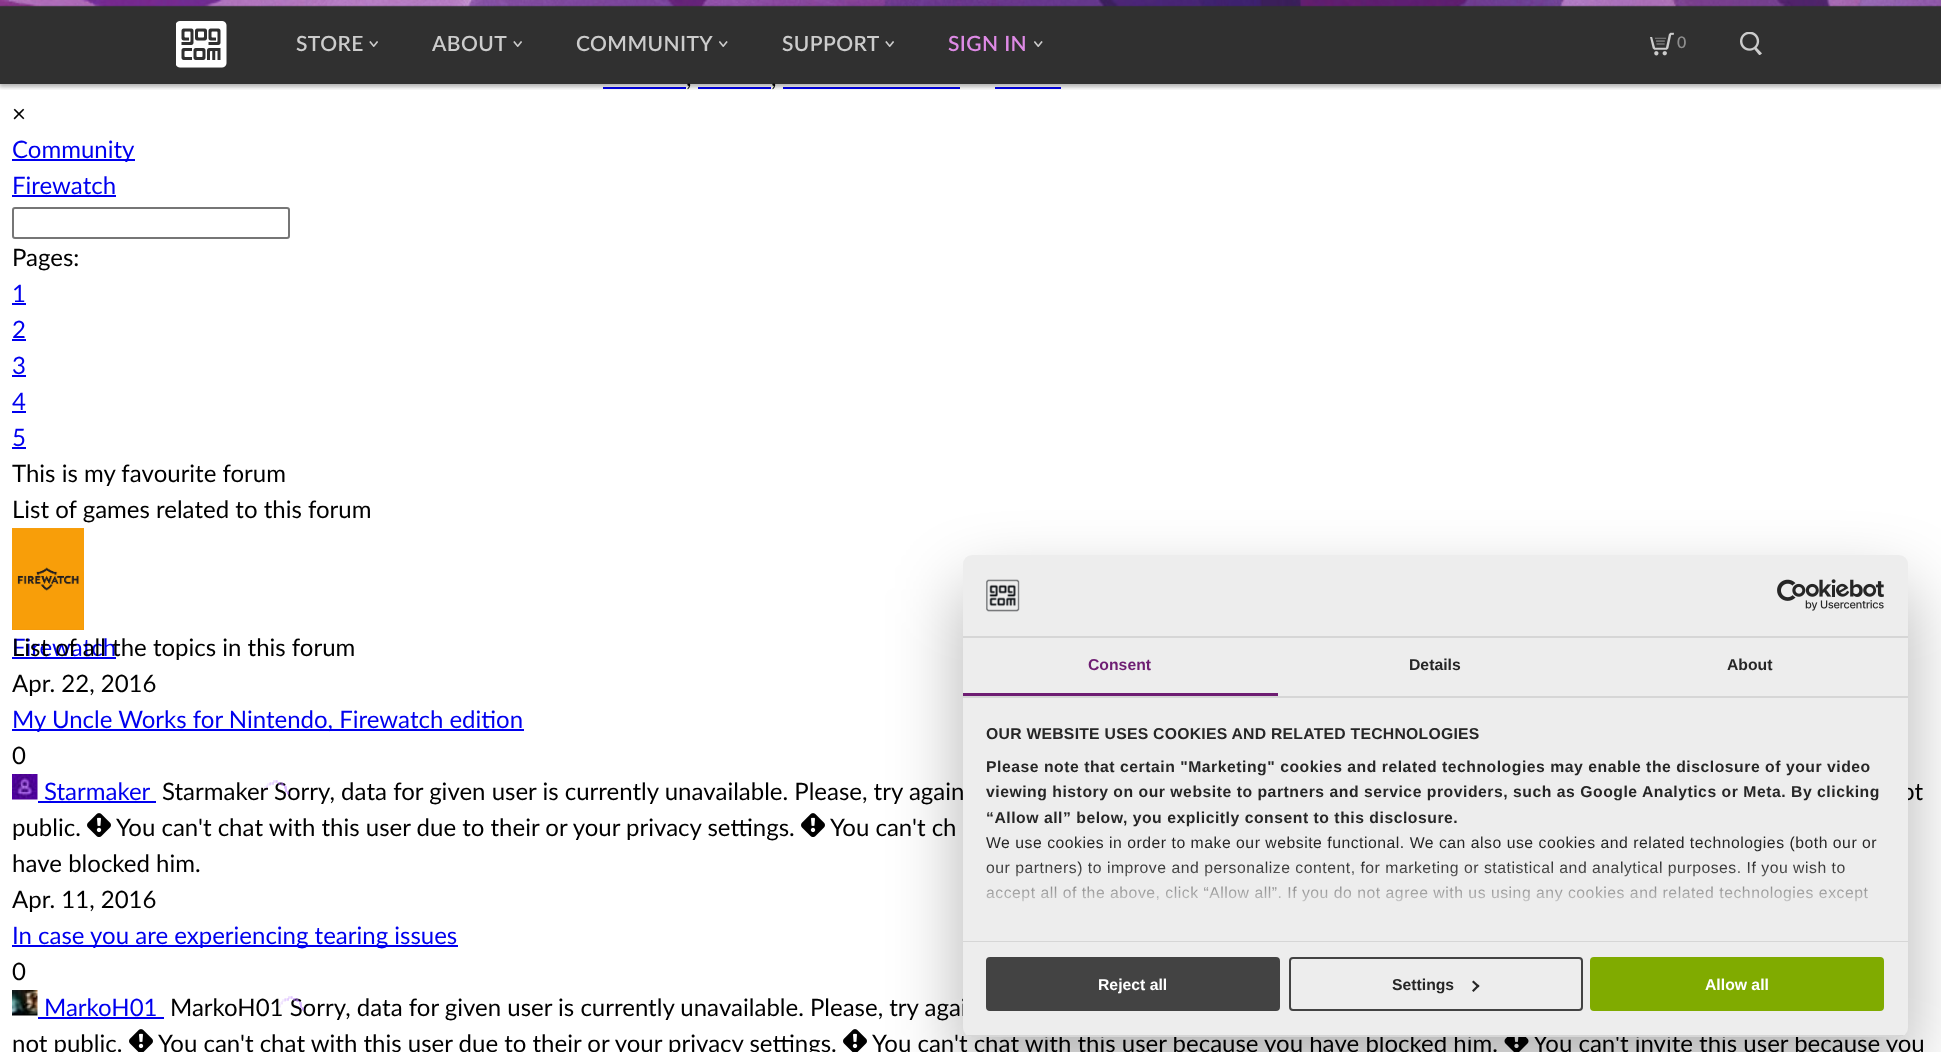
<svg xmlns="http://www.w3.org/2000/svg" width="1941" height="1052">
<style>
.a{font:24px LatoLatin;fill:#000}
.b{font:600 16px LatoLatin;letter-spacing:0.4px;fill:#8e8e8e}
.c{font:600 21px LatoLatin;letter-spacing:0.4px;fill:#de8ae5}
.d{font:600 21px LatoLatin;letter-spacing:0.4px;fill:#ccc}
.e{font:24px LatoLatin;fill:#00e}
.f{font:bold 15.75px Liberation Sans;fill:#6e1d72}
.g{font:bold 15.75px Liberation Sans;fill:#262626}
.h{font:bold 15.75px Liberation Sans;letter-spacing:0.25px;fill:#262626}
.i{font:bold 15.75px Liberation Sans;letter-spacing:0.52px;fill:#262626}
.j{font:15.75px Liberation Sans;letter-spacing:0.52px;fill:#262626}
.k{font:bold 15.75px Liberation Sans;fill:#fff}
</style>
<defs>
<clipPath id="clip1"><path d="M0 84h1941v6H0z"/></clipPath>
<linearGradient id="g1" gradientUnits="userSpaceOnUse" x1="1424" y1="941" x2="1424" y2="862"><stop offset="0" stop-color="#ededed"/><stop offset="0.5" stop-color="#ededed" stop-opacity="0.8"/><stop offset="1" stop-color="#ededed" stop-opacity="0"/></linearGradient>
<clipPath id="clip2"><rect x="963" y="555" width="945" height="482" rx="9"/></clipPath>
</defs>
<rect width="100%" height="100%" fill="#fff"/>
<path fill="#00e" d="M603 87h83v2H603z"/>
<path fill="#00e" d="M698 87h73v2H698z"/>
<path fill="#00e" d="M783 87h177v2H783z"/>
<path fill="#00e" d="M995 87h66v2H995z"/>
<g clip-path="url(#clip1)">
<path fill="#0000004d" filter="blur(2px)" d="M-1 0h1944v87H-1z"/>
</g>
<path fill="#00e" d="M12 159h123v2H12z"/>
<path fill="#00e" d="M12 195h104v2H12z"/>
<rect fill="none" stroke="#767676" stroke-width="2" x="13" y="208" width="276" height="30" rx="2"/>
<path fill="#00e" d="M12 303h14v2H12z"/>
<path fill="#00e" d="M12 339h14v2H12z"/>
<path fill="#00e" d="M12 375h14v2H12z"/>
<path fill="#00e" d="M12 411h14v2H12z"/>
<path fill="#00e" d="M12 447h14v2H12z"/>
<image href="10.png" x="12" y="528" width="72" height="102"/>
<path fill="#00e" d="M12 657h104v2H12z"/>
<path fill="#00e" d="M12 729h512v2H12z"/>
<image href="11.png" x="12" y="774" width="26" height="26"/>
<path fill="#b370ff08" d="M264 789h2v3H264z"/>
<path fill="#b370ff0d" d="M264 789h2v3H264z"/>
<path fill="#b370ff12" d="M264 788h2v3H264z"/>
<path fill="#b370ff17" d="M264 786h2v3H264z"/>
<path fill="#b370ff1a" d="M266 786h2v3H266z"/>
<path fill="#b370ff1f" d="M266 785h2v3H266z"/>
<rect fill="#f4eaff" x="269" y="783" width="2" height="3" rx="1"/>
<rect fill="#d9b8ff54" x="269" y="782" width="2" height="3" rx="1"/>
<rect fill="#d9b8ff5e" x="270" y="782" width="2" height="3" rx="1"/>
<rect fill="#f0e3ff" x="272" y="782" width="2" height="3" rx="1"/>
<rect fill="#d9b8ff6e" x="272" y="782" width="2" height="3" rx="1"/>
<image href="12.png" x="87" y="813" width="24" height="24"/>
<image href="12.png" x="801" y="813" width="24" height="24"/>
<path fill="#00e" d="M38 801h118v2H38z"/>
<path fill="#00e" d="M12 945h446v2H12z"/>
<image href="13.png" x="12" y="990" width="26" height="26"/>
<image href="14.png" x="129" y="1029" width="24" height="23"/>
<image href="14.png" x="843" y="1029" width="24" height="23"/>
<image href="15.png" x="1504" y="1037" width="25" height="15"/>
<path fill="#00e" d="M38 1017h126v2H38z"/>
<rect fill="#0000004d" filter="blur(35.5px)" x="963" y="588" width="945" height="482" rx="9"/>
<text class="a" x="686" y="86">,</text>
<text class="a" x="771" y="86">,</text>
<path fill="#1a1a1ae6" d="M0 5h1941v79H0z"/>
<text class="b" x="1677" y="48">0</text>
<image href="8.png" x="1650" y="32" width="24" height="24"/>
<image href="2.png" x="176" y="21" width="51" height="47"/>
<image href="9.png" x="1740" y="32" width="22" height="23"/>
<image href="7.png" x="1034" y="41" width="9" height="6"/>
<text class="c" x="948" y="51">SIGN IN</text>
<image href="6.png" x="885" y="41" width="9" height="6"/>
<text class="d" x="782" y="51">SUPPORT</text>
<image href="5.png" x="719" y="41" width="9" height="6"/>
<text class="d" x="576" y="51">COMMUNITY</text>
<image href="4.png" x="513" y="41" width="9" height="6"/>
<text class="d" x="432" y="51">ABOUT</text>
<image href="3.png" x="369" y="41" width="9" height="6"/>
<text class="d" x="296" y="51">STORE</text>
<image href="1.png" x="0" y="0" width="1941" height="7"/>
<text class="a" x="12" y="122">×</text>
<text class="e" x="12" y="158">Community</text>
<text class="e" x="12" y="194">Firewatch</text>
<text class="a" x="12" y="266">Pages:</text>
<text class="e" x="12" y="302">1</text>
<text class="e" x="12" y="338">2</text>
<text class="e" x="12" y="374">3</text>
<text class="e" x="12" y="410">4</text>
<text class="e" x="12" y="446">5</text>
<text class="a" x="12" y="482">This is my favourite forum</text>
<text class="a" x="12" y="518">List of games related to this forum</text>
<text class="e" x="12" y="656">Firewatch</text>
<text class="a" x="12" y="656">List of all the topics in this forum</text>
<text class="a" x="12" y="692">Apr. 22, 2016</text>
<text class="e" x="12" y="728">My Uncle Works for Nintendo, Firewatch edition</text>
<text class="a" x="12" y="764">0</text>
<text class="a" x="162" y="800">Starmaker</text>
<rect fill="#d9b8ff45" x="267" y="783" width="2" height="3" rx="1"/>
<text class="a" x="274" y="800">Sorry, data for given user is currently unavailable. Please, try again</text>
<rect fill="#b370ff7a" x="287" y="791" width="2" height="3" rx="1"/>
<rect fill="#b370ff80" x="287" y="792" width="2" height="3" rx="1"/>
<rect fill="#b370ff63" x="284" y="785" width="2" height="3" rx="1"/>
<rect fill="#d9b8ffcc" x="284" y="786" width="2" height="3" rx="1"/>
<rect fill="#d9b8ffd4" x="285" y="786" width="2" height="3" rx="1"/>
<rect fill="#d9b8ffde" x="285" y="788" width="2" height="3" rx="1"/>
<rect fill="#d9b8ffe6" x="285" y="789" width="2" height="3" rx="1"/>
<rect fill="#d9b8ffed" x="285" y="789" width="2" height="3" rx="1"/>
<rect fill="#b370ff54" x="281" y="782" width="2" height="3" rx="1"/>
<rect fill="#b370ff59" x="281" y="783" width="2" height="3" rx="1"/>
<rect fill="#b370ff5e" x="282" y="783" width="2" height="3" rx="1"/>
<rect fill="#b370ff47" x="278" y="782" width="2" height="3" rx="1"/>
<rect fill="#b370ff4d" x="278" y="782" width="2" height="3" rx="1"/>
<rect fill="#b370ff52" x="279" y="782" width="2" height="3" rx="1"/>
<rect fill="#ecdcff" x="275" y="780" width="2" height="3" rx="1"/>
<rect fill="#d9b8ff87" x="276" y="780" width="2" height="3" rx="1"/>
<rect fill="#d9b8ff78" x="273" y="780" width="2" height="3" rx="1"/>
<text class="a" x="1901" y="800">ot</text>
<text class="a" x="12" y="836">public.</text>
<text class="a" x="116" y="836">You can't chat with this user due to their or your privacy settings.</text>
<text class="a" x="830" y="836">You can't ch</text>
<text class="a" x="12" y="872">have blocked him.</text>
<text class="e" x="44" y="800">Starmaker</text>
<text class="a" x="12" y="908">Apr. 11, 2016</text>
<text class="e" x="12" y="944">In case you are experiencing tearing issues</text>
<text class="a" x="12" y="980">0</text>
<text class="a" x="170" y="1016">MarkoH01 Sorry, data for given user is currently unavailable. Please, try agai</text>
<rect fill="#b370ff7a" x="302" y="1007" width="2" height="3" rx="1"/>
<rect fill="#b370ff80" x="302" y="1008" width="2" height="3" rx="1"/>
<rect fill="#b370ff63" x="299" y="1001" width="2" height="3" rx="1"/>
<rect fill="#d9b8ffcc" x="299" y="1002" width="2" height="3" rx="1"/>
<rect fill="#d9b8ffd4" x="300" y="1002" width="2" height="3" rx="1"/>
<rect fill="#d9b8ffde" x="300" y="1004" width="2" height="3" rx="1"/>
<rect fill="#d9b7ffe6" x="300" y="1005" width="2" height="3" rx="1"/>
<rect fill="#d9b7ffed" x="300" y="1005" width="2" height="3" rx="1"/>
<rect fill="#b370ff54" x="296" y="998" width="2" height="3" rx="1"/>
<rect fill="#b370ff59" x="296" y="999" width="2" height="3" rx="1"/>
<rect fill="#b370ff5e" x="297" y="999" width="2" height="3" rx="1"/>
<rect fill="#b370ff47" x="293" y="998" width="2" height="3" rx="1"/>
<rect fill="#b370ff4d" x="293" y="998" width="2" height="3" rx="1"/>
<rect fill="#b370ff52" x="294" y="998" width="2" height="3" rx="1"/>
<rect fill="#ecdcff" x="290" y="996" width="2" height="3" rx="1"/>
<rect fill="#d9b8ff87" x="291" y="996" width="2" height="3" rx="1"/>
<rect fill="#f0e3ff" x="287" y="998" width="2" height="3" rx="1"/>
<rect fill="#d9b8ff6e" x="287" y="998" width="2" height="3" rx="1"/>
<rect fill="#d9b8ff78" x="288" y="996" width="2" height="3" rx="1"/>
<rect fill="#f4eaff" x="284" y="999" width="2" height="3" rx="1"/>
<rect fill="#d9b8ff54" x="284" y="998" width="2" height="3" rx="1"/>
<rect fill="#d9b8ff5e" x="285" y="998" width="2" height="3" rx="1"/>
<rect fill="#f7f1ff" x="281" y="1002" width="2" height="3" rx="1"/>
<path fill="#d9b8ff3b" d="M281 1001h2v3H281z"/>
<rect fill="#d9b8ff45" x="282" y="999" width="2" height="3" rx="1"/>
<rect fill="#f9f4ff" x="279" y="1005" width="2" height="3" rx="1"/>
<path fill="#d9b8ff21" d="M279 1004h2v3H279z"/>
<path fill="#d9b8ff2b" d="M279 1002h2v3H279z"/>
<text class="a" x="12" y="1052">not public.</text>
<text class="a" x="158" y="1052">You can't chat with this user due to their or your privacy settings.</text>
<text class="a" x="872" y="1052">You can't chat with this user because you have blocked him.</text>
<text class="a" x="1533" y="1052">You can't invite this user because you</text>
<text class="e" x="44" y="1016">MarkoH01</text>
<rect fill="#ededed" x="963" y="555" width="945" height="482" rx="9"/>
<path fill="#d6d6d6" d="M963 636h945v2H963z"/>
<image href="16.png" x="986" y="579" width="34" height="33"/>
<image href="17.png" x="1777" y="579" width="107" height="32"/>
<path fill="#d6d6d6" d="M963 696h945v2H963z"/>
<path fill="#6e1d72" d="M963 693h315v3H963z"/>
<text class="f" x="1088" y="670">Consent</text>
<text class="g" x="1409" y="670">Details</text>
<text class="g" x="1727" y="670">About</text>
<path fill="#d6d6d6" d="M963 941h945v1H963z"/>
<text class="h" x="986" y="739">OUR WEBSITE USES COOKIES AND RELATED TECHNOLOGIES</text>
<text class="i" x="986" y="772">Please note that certain "Marketing" cookies and related technologies may enable the disclosure of your video</text>
<text class="i" x="986" y="797">viewing history on our website to partners and service providers, such as Google Analytics or Meta. By clicking</text>
<text class="i" x="986" y="823">“Allow all” below, you explicitly consent to this disclosure.</text>
<text class="j" x="986" y="848">We use cookies in order to make our website functional. We can also use cookies and related technologies (both our or</text>
<text class="j" x="986" y="873">our partners) to improve and personalize content, for marketing or statistical and analytical purposes. If you wish to</text>
<text class="j" x="986" y="898">accept all of the above, click “Allow all”. If you do not agree with us using any cookies and related technologies except</text>
<path fill="url(#g1)" d="M986 863h883v39H986z"/>
<g clip-path="url(#clip2)">
<path fill="#d6d6d6" d="M963 1035h945v2H963z"/>
</g>
<rect fill="#434343" stroke="#434343" stroke-width="2" x="987" y="958" width="292" height="52" rx="3"/>
<text class="k" x="1098" y="990">Reject all</text>
<rect fill="none" stroke="#434343" stroke-width="2" x="1290" y="958" width="292" height="52" rx="3"/>
<text class="g" x="1392" y="990">Settings</text>
<path fill="#262626" d="M1473.5 980.5l6 5.5l-1.5 1.5l-6-5.5z"/>
<path fill="#262626" d="M1478 984.5l1.5 1.5l-6 6l-1.5-1.5z"/>
<rect fill="#80ab00" stroke="#80ab00" stroke-width="2" x="1591" y="958" width="292" height="52" rx="3"/>
<text class="k" x="1705" y="990">Allow all</text>
</svg>
